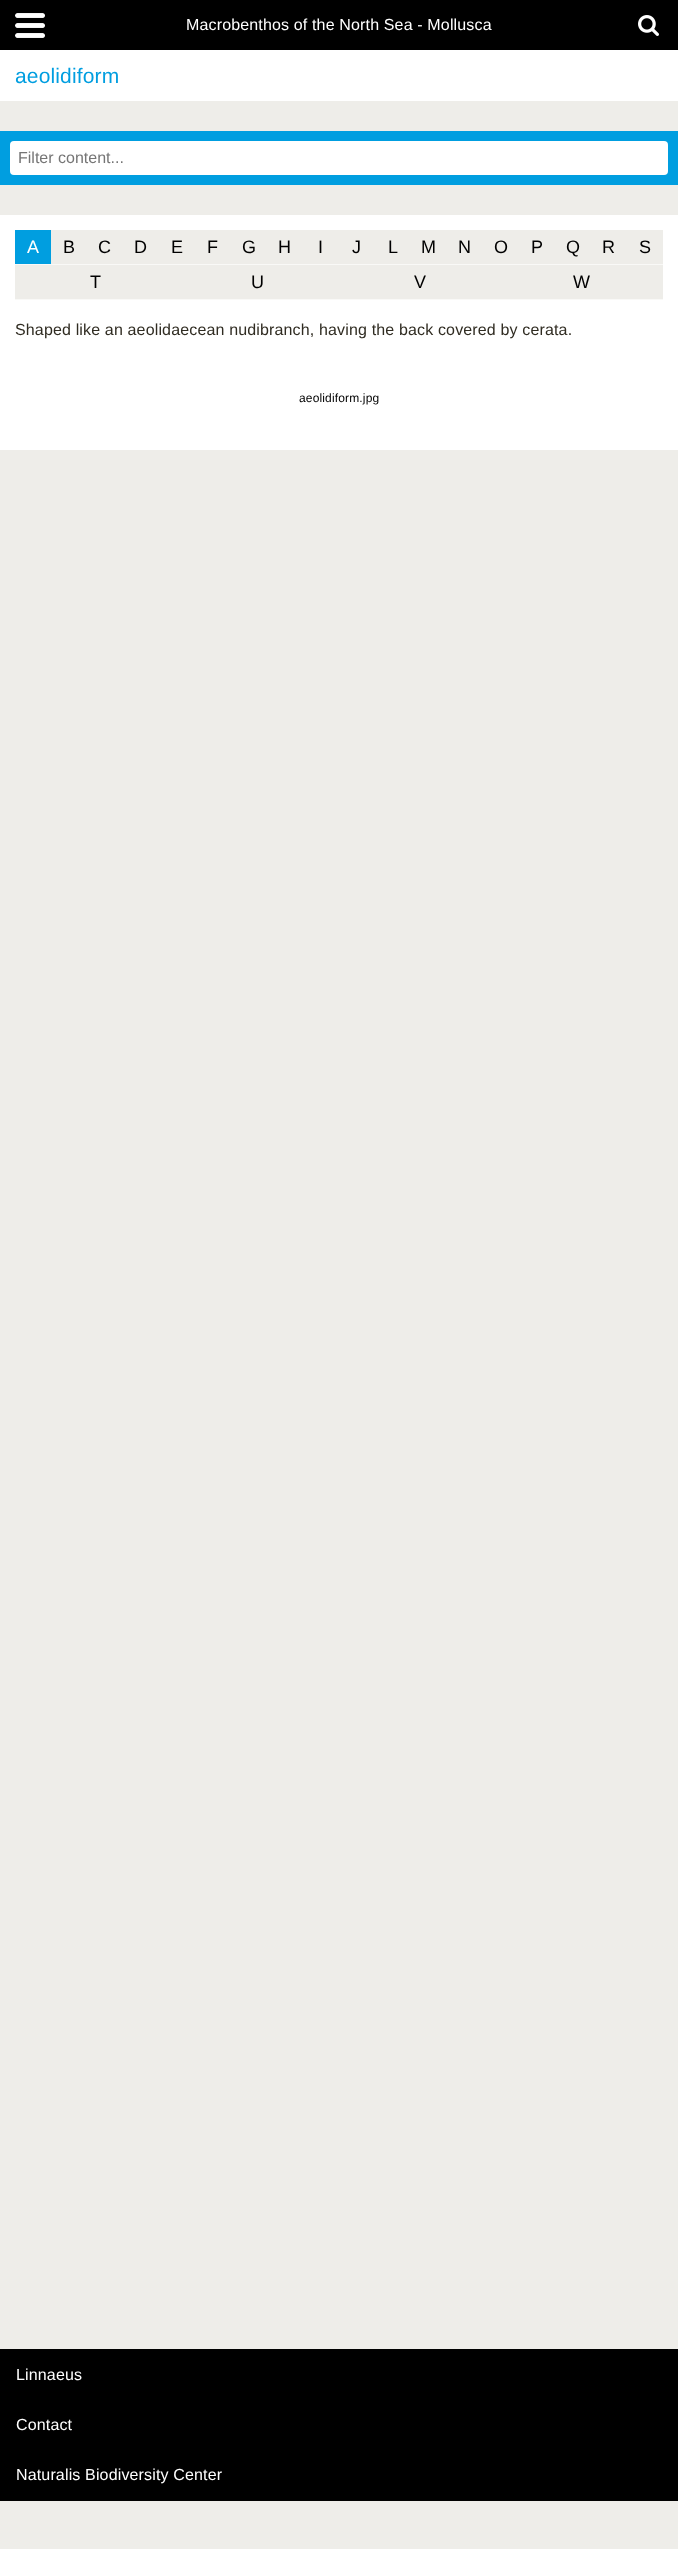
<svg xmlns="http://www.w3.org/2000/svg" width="678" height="2549">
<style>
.a{font:16px Liberation Sans;letter-spacing:0.15px;fill:#fff}
.b{font:21px Liberation Sans;letter-spacing:0.15px;fill:#009ee0}
.c{font:16px Liberation Sans;fill:#757575}
.d{font:18px Liberation Sans;letter-spacing:0.15px;fill:#fff}
.e{font:18px Liberation Sans;letter-spacing:0.15px;fill:#000}
.f{font:16px Liberation Sans;letter-spacing:0.15px;fill:#302c22}
.g{font:12px Liberation Sans;letter-spacing:0.15px;fill:#000}
</style>
<rect width="100%" height="100%" fill="#eeede9"/>
<path fill="#000" d="M0 0h678v50H0z"/>
<image href="1.png" x="15" y="13" width="30" height="25"/>
<image href="2.png" x="638" y="15" width="21" height="21"/>
<path fill="#fff" d="M0 50h678v51H0z"/>
<path fill="#009ee0" d="M0 131h678v54H0z"/>
<rect fill="#fff" x="10" y="141" width="658" height="34" rx="4"/>
<path fill="#fff" d="M0 215h678v235H0z"/>
<path fill="#eeede9" d="M15 230h648v69H15z"/>
<path fill="#009ee0" d="M15 230h36v34H15z"/>
<path fill="#f9f9f7" d="M15 264h648v1H15z"/>
<path fill="#f9f9f7" d="M15 299h648v1H15z"/>
<path fill="#000" d="M0 2349h678v152H0z"/>
<text class="a" x="186" y="30">Macrobenthos of the North Sea - Mollusca</text>
<text class="b" x="15" y="83">aeolidiform</text>
<text class="c" x="18" y="163">Filter content...</text>
<text class="d" x="27" y="253">A</text>
<text class="e" x="63" y="253">B</text>
<text class="e" x="98" y="253">C</text>
<text class="e" x="134" y="253">D</text>
<text class="e" x="171" y="253">E</text>
<text class="e" x="207" y="253">F</text>
<text class="e" x="242" y="253">G</text>
<text class="e" x="278" y="253">H</text>
<text class="e" x="318" y="253">I</text>
<text class="e" x="352" y="253">J</text>
<text class="e" x="388" y="253">L</text>
<text class="e" x="421" y="253">M</text>
<text class="e" x="458" y="253">N</text>
<text class="e" x="494" y="253">O</text>
<text class="e" x="531" y="253">P</text>
<text class="e" x="566" y="253">Q</text>
<text class="e" x="602" y="253">R</text>
<text class="e" x="639" y="253">S</text>
<text class="e" x="90" y="288">T</text>
<text class="e" x="251" y="288">U</text>
<text class="e" x="414" y="288">V</text>
<text class="e" x="573" y="288">W</text>
<text class="f" x="15" y="335">Shaped like an aeolidaecean nudibranch, having the back covered by cerata.</text>
<text class="g" x="299" y="402">aeolidiform.jpg</text>
<text class="a" x="16" y="2380">Linnaeus</text>
<text class="a" x="16" y="2430">Contact</text>
<text class="a" x="16" y="2480">Naturalis Biodiversity Center</text>
</svg>
